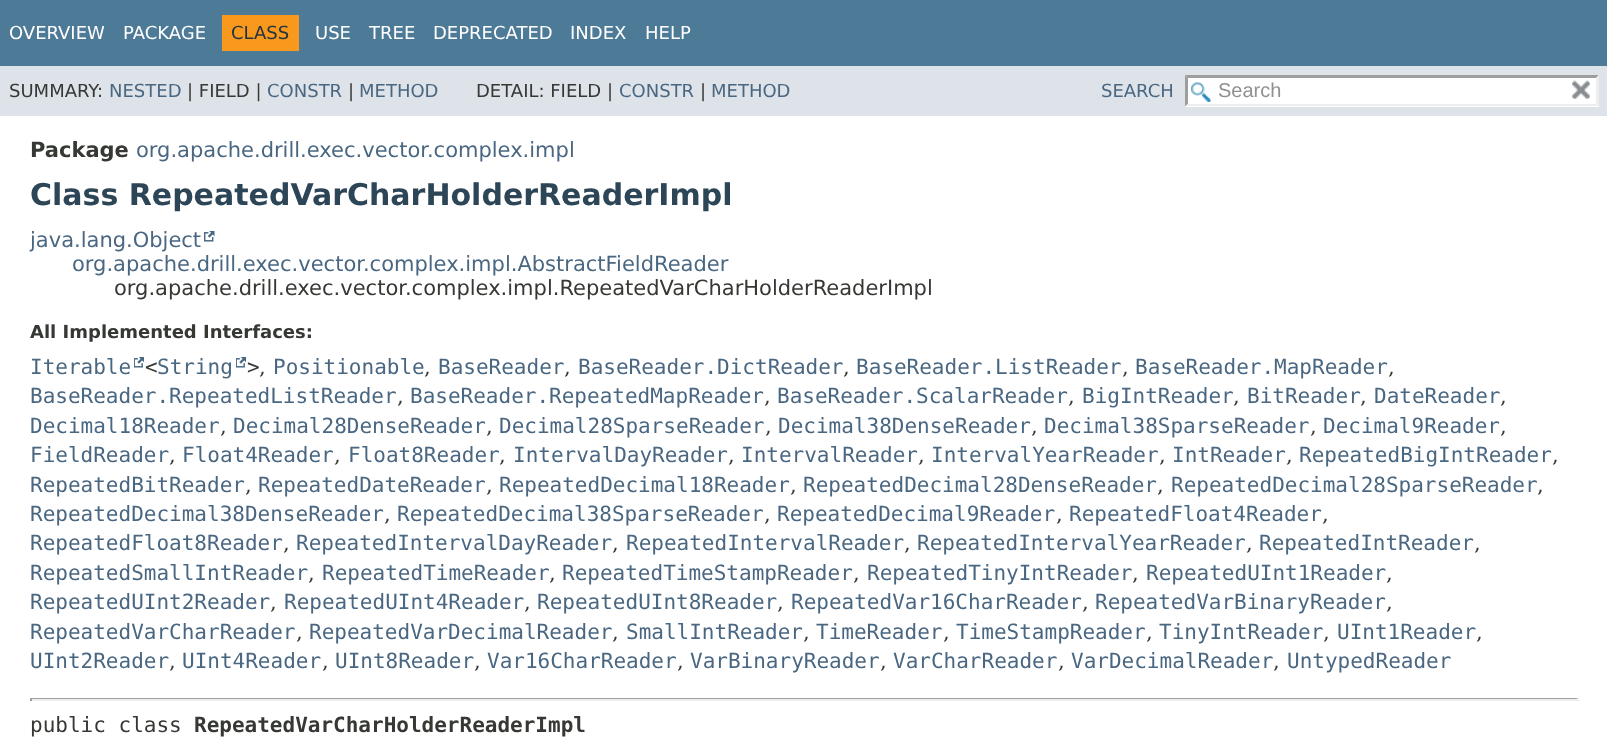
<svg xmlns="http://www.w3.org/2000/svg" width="1607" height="742">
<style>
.a{font:18px DejaVu Sans;fill:#fff}
.b{font:18px DejaVu Sans;fill:#253441}
.c{font:18px DejaVu Sans;fill:#353833}
.d{font:18px DejaVu Sans;fill:#4a6782}
.e{font:20px Liberation Sans;fill:#909090}
.f{font:bold 21px DejaVu Sans;fill:#353833}
.g{font:21px DejaVu Sans;fill:#4a6782}
.h{font:bold 30px DejaVu Sans;fill:#2c4557}
.i{font:21px DejaVu Sans;fill:#353833}
.j{font:bold 18px DejaVu Sans;fill:#353833}
.k{font:21px DejaVu Sans Mono;fill:#4a6782}
.l{font:21px DejaVu Sans Mono;fill:#353833}
.m{font:21px DejaVu Serif;fill:#353833}
.n{font:bold 21px DejaVu Sans Mono;fill:#353833}
</style>
<rect width="100%" height="100%" fill="#fff"/>
<path fill="#4d7a97" d="M0 0h1607v66H0z"/>
<path fill="#f8981d" d="M222 15h77v36H222z"/>
<path fill="#dee3e9" d="M0 66h1607v50H0z"/>
<path fill="#fff" d="M1185 75h414v32H1185z"/>
<image href="1.png" x="1191" y="82" width="20" height="20"/>
<path fill="#9e9e9e" d="M1185 75h414l-3 3h-408z"/>
<path fill="#ededed" d="M1599 75v31.5l-3-3v-25.5z"/>
<path fill="#ededed" d="M1599 106h-414l3-2h408z"/>
<path fill="#9e9e9e" d="M1185 106.5v-31.5l3 3v25.5z"/>
<image href="2.png" x="1572" y="80" width="18" height="19"/>
<image href="3.png" x="204" y="231" width="11" height="11"/>
<image href="4.png" x="134" y="357" width="10" height="11"/>
<image href="4.png" x="236" y="357" width="10" height="11"/>
<path fill="#9f9f9f" d="M30 698h1548v1H30z"/>
<path fill="#eee" d="M1577 698h2v3H1577z"/>
<path fill="#eee" d="M30 699h1548v2H30z"/>
<path fill="#9f9f9f" d="M30 698h2v3H30z"/>
<text class="a" x="9" y="39">OVERVIEW</text>
<text class="a" x="123" y="39">PACKAGE</text>
<text class="b" x="231" y="39">CLASS</text>
<text class="a" x="315" y="39">USE</text>
<text class="a" x="369" y="39">TREE</text>
<text class="a" x="433" y="39">DEPRECATED</text>
<text class="a" x="570" y="39">INDEX</text>
<text class="a" x="645" y="39">HELP</text>
<text class="c" x="9" y="97">SUMMARY:</text>
<text class="d" x="109" y="97">NESTED</text>
<text class="c" x="187" y="97">| FIELD |</text>
<text class="d" x="267" y="97">CONSTR</text>
<text class="c" x="348" y="97">|</text>
<text class="d" x="359" y="97">METHOD</text>
<text class="c" x="476" y="97">DETAIL: FIELD |</text>
<text class="d" x="619" y="97">CONSTR</text>
<text class="c" x="700" y="97">|</text>
<text class="d" x="711" y="97">METHOD</text>
<text class="d" x="1101" y="97">SEARCH</text>
<text class="e" x="1218" y="97">Search</text>
<text class="f" x="30" y="157">Package</text>
<text class="g" x="136" y="157">org.apache.drill.exec.vector.complex.impl</text>
<text class="h" x="30" y="205">Class RepeatedVarCharHolderReaderImpl</text>
<text class="g" x="30" y="247">java.lang.Object</text>
<text class="g" x="72" y="271">org.apache.drill.exec.vector.complex.impl.AbstractFieldReader</text>
<text class="i" x="114" y="295">org.apache.drill.exec.vector.complex.impl.RepeatedVarCharHolderReaderImpl</text>
<text class="j" x="30" y="338">All Implemented Interfaces:</text>
<text class="k" x="30" y="374">Iterable</text>
<text class="l" x="145" y="374">&lt;</text>
<text class="k" x="157" y="374">String</text>
<text class="l" x="247" y="374">&gt;</text>
<text class="m" x="259" y="374">,</text>
<text class="k" x="273" y="374">Positionable</text>
<text class="m" x="424" y="374">,</text>
<text class="k" x="438" y="374">BaseReader</text>
<text class="m" x="564" y="374">,</text>
<text class="k" x="578" y="374">BaseReader.DictReader</text>
<text class="m" x="843" y="374">,</text>
<text class="k" x="856" y="374">BaseReader.ListReader</text>
<text class="m" x="1122" y="374">,</text>
<text class="k" x="1135" y="374">BaseReader.MapReader</text>
<text class="m" x="1388" y="374">,</text>
<text class="k" x="30" y="403">BaseReader.RepeatedListReader</text>
<text class="m" x="397" y="403">,</text>
<text class="k" x="410" y="403">BaseReader.RepeatedMapReader</text>
<text class="m" x="764" y="403">,</text>
<text class="k" x="777" y="403">BaseReader.ScalarReader</text>
<text class="m" x="1068" y="403">,</text>
<text class="k" x="1082" y="403">BigIntReader</text>
<text class="m" x="1233" y="403">,</text>
<text class="k" x="1247" y="403">BitReader</text>
<text class="m" x="1360" y="403">,</text>
<text class="k" x="1374" y="403">DateReader</text>
<text class="m" x="1500" y="403">,</text>
<text class="k" x="30" y="433">Decimal18Reader</text>
<text class="m" x="220" y="433">,</text>
<text class="k" x="233" y="433">Decimal28DenseReader</text>
<text class="m" x="486" y="433">,</text>
<text class="k" x="499" y="433">Decimal28SparseReader</text>
<text class="m" x="765" y="433">,</text>
<text class="k" x="778" y="433">Decimal38DenseReader</text>
<text class="m" x="1031" y="433">,</text>
<text class="k" x="1044" y="433">Decimal38SparseReader</text>
<text class="m" x="1310" y="433">,</text>
<text class="k" x="1323" y="433">Decimal9Reader</text>
<text class="m" x="1500" y="433">,</text>
<text class="k" x="30" y="462">FieldReader</text>
<text class="m" x="169" y="462">,</text>
<text class="k" x="182" y="462">Float4Reader</text>
<text class="m" x="334" y="462">,</text>
<text class="k" x="348" y="462">Float8Reader</text>
<text class="m" x="499" y="462">,</text>
<text class="k" x="513" y="462">IntervalDayReader</text>
<text class="m" x="728" y="462">,</text>
<text class="k" x="741" y="462">IntervalReader</text>
<text class="m" x="918" y="462">,</text>
<text class="k" x="931" y="462">IntervalYearReader</text>
<text class="m" x="1159" y="462">,</text>
<text class="k" x="1172" y="462">IntReader</text>
<text class="m" x="1286" y="462">,</text>
<text class="k" x="1299" y="462">RepeatedBigIntReader</text>
<text class="m" x="1552" y="462">,</text>
<text class="k" x="30" y="492">RepeatedBitReader</text>
<text class="m" x="245" y="492">,</text>
<text class="k" x="258" y="492">RepeatedDateReader</text>
<text class="m" x="486" y="492">,</text>
<text class="k" x="499" y="492">RepeatedDecimal18Reader</text>
<text class="m" x="790" y="492">,</text>
<text class="k" x="803" y="492">RepeatedDecimal28DenseReader</text>
<text class="m" x="1157" y="492">,</text>
<text class="k" x="1171" y="492">RepeatedDecimal28SparseReader</text>
<text class="m" x="1537" y="492">,</text>
<text class="k" x="30" y="521">RepeatedDecimal38DenseReader</text>
<text class="m" x="384" y="521">,</text>
<text class="k" x="397" y="521">RepeatedDecimal38SparseReader</text>
<text class="m" x="764" y="521">,</text>
<text class="k" x="777" y="521">RepeatedDecimal9Reader</text>
<text class="m" x="1056" y="521">,</text>
<text class="k" x="1069" y="521">RepeatedFloat4Reader</text>
<text class="m" x="1322" y="521">,</text>
<text class="k" x="30" y="550">RepeatedFloat8Reader</text>
<text class="m" x="283" y="550">,</text>
<text class="k" x="296" y="550">RepeatedIntervalDayReader</text>
<text class="m" x="612" y="550">,</text>
<text class="k" x="626" y="550">RepeatedIntervalReader</text>
<text class="m" x="904" y="550">,</text>
<text class="k" x="917" y="550">RepeatedIntervalYearReader</text>
<text class="m" x="1246" y="550">,</text>
<text class="k" x="1259" y="550">RepeatedIntReader</text>
<text class="m" x="1474" y="550">,</text>
<text class="k" x="30" y="580">RepeatedSmallIntReader</text>
<text class="m" x="308" y="580">,</text>
<text class="k" x="322" y="580">RepeatedTimeReader</text>
<text class="m" x="549" y="580">,</text>
<text class="k" x="562" y="580">RepeatedTimeStampReader</text>
<text class="m" x="853" y="580">,</text>
<text class="k" x="867" y="580">RepeatedTinyIntReader</text>
<text class="m" x="1132" y="580">,</text>
<text class="k" x="1146" y="580">RepeatedUInt1Reader</text>
<text class="m" x="1386" y="580">,</text>
<text class="k" x="30" y="609">RepeatedUInt2Reader</text>
<text class="m" x="270" y="609">,</text>
<text class="k" x="284" y="609">RepeatedUInt4Reader</text>
<text class="m" x="524" y="609">,</text>
<text class="k" x="537" y="609">RepeatedUInt8Reader</text>
<text class="m" x="777" y="609">,</text>
<text class="k" x="791" y="609">RepeatedVar16CharReader</text>
<text class="m" x="1082" y="609">,</text>
<text class="k" x="1095" y="609">RepeatedVarBinaryReader</text>
<text class="m" x="1386" y="609">,</text>
<text class="k" x="30" y="639">RepeatedVarCharReader</text>
<text class="m" x="296" y="639">,</text>
<text class="k" x="309" y="639">RepeatedVarDecimalReader</text>
<text class="m" x="612" y="639">,</text>
<text class="k" x="626" y="639">SmallIntReader</text>
<text class="m" x="803" y="639">,</text>
<text class="k" x="816" y="639">TimeReader</text>
<text class="m" x="943" y="639">,</text>
<text class="k" x="956" y="639">TimeStampReader</text>
<text class="m" x="1146" y="639">,</text>
<text class="k" x="1159" y="639">TinyIntReader</text>
<text class="m" x="1323" y="639">,</text>
<text class="k" x="1337" y="639">UInt1Reader</text>
<text class="m" x="1476" y="639">,</text>
<text class="k" x="30" y="668">UInt2Reader</text>
<text class="m" x="169" y="668">,</text>
<text class="k" x="182" y="668">UInt4Reader</text>
<text class="m" x="322" y="668">,</text>
<text class="k" x="335" y="668">UInt8Reader</text>
<text class="m" x="474" y="668">,</text>
<text class="k" x="487" y="668">Var16CharReader</text>
<text class="m" x="677" y="668">,</text>
<text class="k" x="690" y="668">VarBinaryReader</text>
<text class="m" x="880" y="668">,</text>
<text class="k" x="893" y="668">VarCharReader</text>
<text class="m" x="1058" y="668">,</text>
<text class="k" x="1071" y="668">VarDecimalReader</text>
<text class="m" x="1273" y="668">,</text>
<text class="k" x="1287" y="668">UntypedReader</text>
<text class="l" x="30" y="732">public class</text>
<text class="n" x="194" y="732">RepeatedVarCharHolderReaderImpl</text>
</svg>
